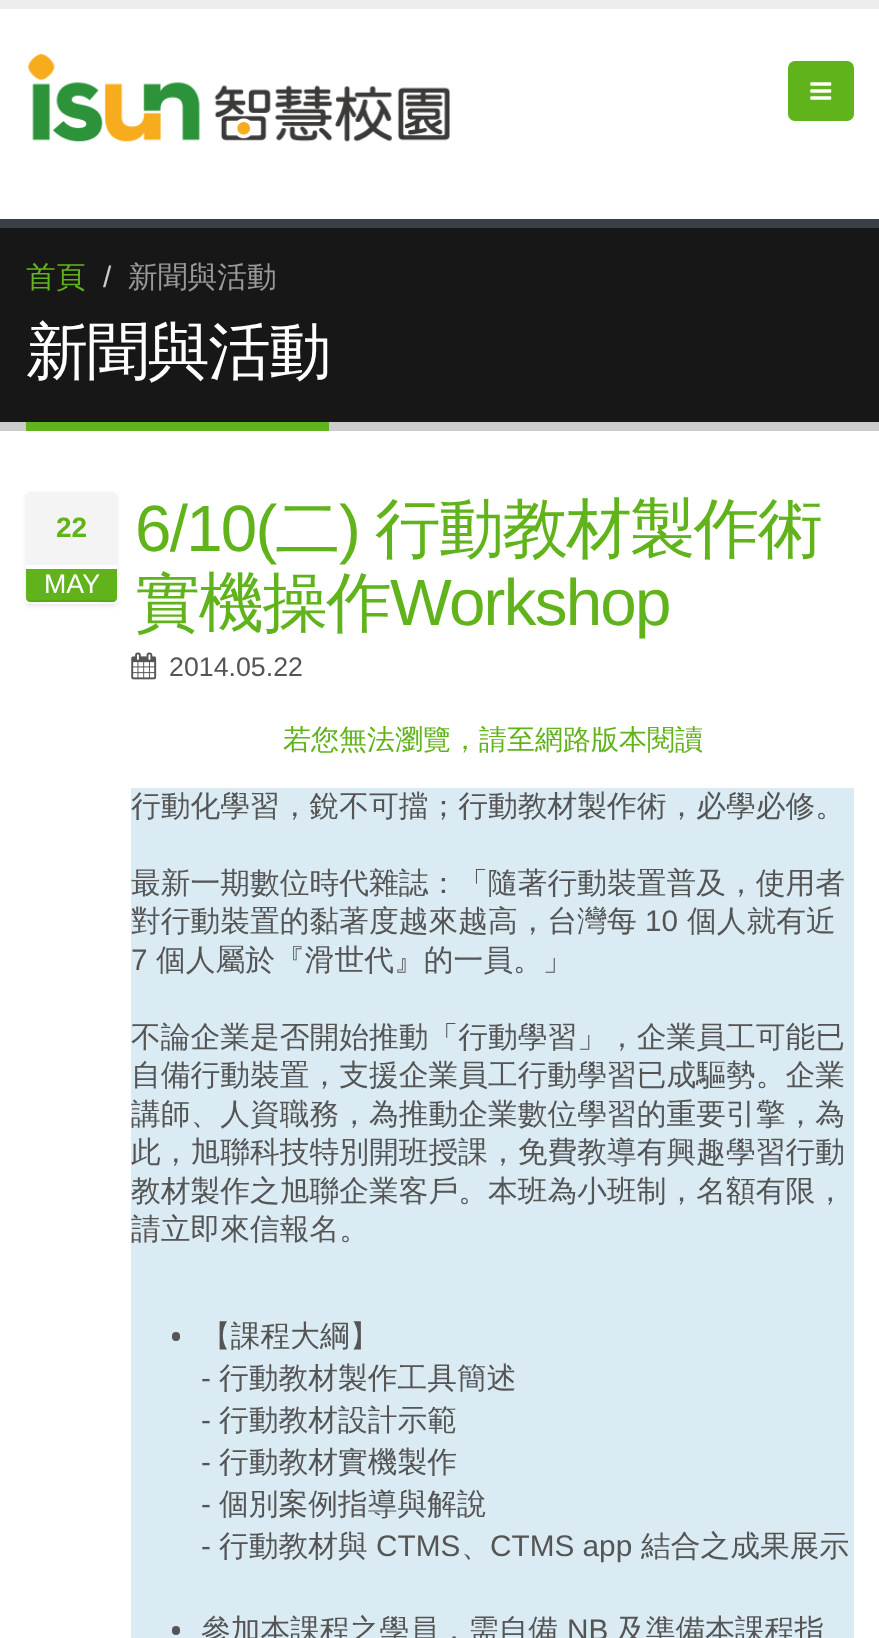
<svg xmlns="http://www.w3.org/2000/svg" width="879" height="1638">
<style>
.a{font:500 29.75px WenQuanYi Zen Hei;fill:#61b31c}
.b{font:29.75px Liberation Sans;fill:#ccc}
.c{font:500 29.75px WenQuanYi Zen Hei;fill:#999}
.d{font:500 62.5px WenQuanYi Zen Hei;letter-spacing:-1.75px;fill:#fff}
.e{font:bold 28px Liberation Sans;fill:#61b31c}
.f{font:26.75px Liberation Sans;fill:#fff}
.g{font:65.5px Liberation Sans;letter-spacing:-1.75px;fill:#61b31c}
.h{font:500 65.5px WenQuanYi Zen Hei;letter-spacing:-1.75px;fill:#61b31c}
.i{font:26.75px Liberation Sans;fill:#555}
.j{font:500 28px WenQuanYi Zen Hei;fill:#61b31c}
.k{font:500 29.75px WenQuanYi Zen Hei;fill:#555}
.l{font:29.75px Liberation Sans;fill:#555}
</style>
<defs>
<clipPath id="clip1"><path d="M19 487h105v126h-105zm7 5h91v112h-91z" clip-rule="evenodd"/></clipPath>
</defs>
<rect width="100%" height="100%" fill="#fff"/>
<path fill="#ededed" d="M0 0h879v9H0z"/>
<image href="1.png" x="28" y="54" width="422" height="88"/>
<rect fill="#61b31c" x="788" y="61" width="66" height="60" rx="7"/>
<image href="2.png" x="810" y="82" width="22" height="18"/>
<path fill="#171717" d="M0 228h879v194H0z"/>
<path fill="#384045" d="M0 219h879v9H0z"/>
<path fill="#ccc" d="M0 422h879v9H0z"/>
<path fill="#61b31c" d="M26 422h303v9H26z"/>
<g clip-path="url(#clip1)">
<path fill="#0000001a" filter="blur(2px)" d="M26 494h91v112H26z"/>
</g>
<path fill="#f4f4f4" d="M30 492h83c2 0 4 2 4 4v69h-91v-69c0-2 2-4 4-4z"/>
<path fill="#61b31c" d="M26 569h91v29c0 2-2 4-4 4h-83c-2 0-4-2-4-4z"/>
<path fill="#00000012" d="M26 597c0 9 13 5 18 5h55c5 0 18 4 18-5c0 1 0 2-2 3h-85l-3-1z"/>
<image href="3.png" x="131" y="652" width="26" height="28"/>
<path fill="#daebf3" d="M131 788h723v850H131z"/>
<rect fill="#555" x="172" y="1332" width="8" height="9" rx="4"/>
<rect fill="#555" x="172" y="1626" width="8" height="9" rx="4"/>
<text class="a" x="26" y="287">首頁</text>
<text class="b" x="103" y="287">/</text>
<text class="c" x="128" y="287">新聞與活動</text>
<text class="d" x="26" y="373">新聞與活動</text>
<text class="e" x="56" y="537">22</text>
<text class="f" x="44" y="593">MAY</text>
<text class="g" x="135" y="551">6/10(</text>
<text class="h" x="275" y="551">二</text>
<text class="g" x="339" y="551">)</text>
<text class="h" x="375" y="551">行動教材製作術</text>
<text class="h" x="135" y="625">實機操作</text>
<text class="g" x="390" y="625">Workshop</text>
<text class="i" x="169" y="676">2014.05.22</text>
<text class="j" x="283" y="749">若您無法瀏覽，請至網路版本閱讀</text>
<text class="k" x="131" y="816">行動化學習，銳不可擋；行動教材製作術，必學必修。</text>
<text class="k" x="131" y="893">最新一期數位時代雜誌：「隨著行動裝置普及，使用者</text>
<text class="k" x="131" y="931">對行動裝置的黏著度越來越高，台灣每</text>
<text class="l" x="645" y="931">10</text>
<text class="k" x="687" y="931">個人就有近</text>
<text class="l" x="131" y="970">7</text>
<text class="k" x="156" y="970">個人屬於『滑世代』的一員。」</text>
<text class="k" x="131" y="1047">不論企業是否開始推動「行動學習」，企業員工可能已</text>
<text class="k" x="131" y="1085">自備行動裝置，支援企業員工行動學習已成驅勢。企業</text>
<text class="k" x="131" y="1124">講師、人資職務，為推動企業數位學習的重要引擎，為</text>
<text class="k" x="131" y="1162">此，旭聯科技特別開班授課，免費教導有興趣學習行動</text>
<text class="k" x="131" y="1201">教材製作之旭聯企業客戶。本班為小班制，名額有限，</text>
<text class="k" x="131" y="1239">請立即來信報名。</text>
<text class="k" x="201" y="1346">【課程大綱】</text>
<text class="l" x="201" y="1388">-</text>
<text class="k" x="219" y="1388">行動教材製作工具簡述</text>
<text class="l" x="201" y="1430">-</text>
<text class="k" x="219" y="1430">行動教材設計示範</text>
<text class="l" x="201" y="1472">-</text>
<text class="k" x="219" y="1472">行動教材實機製作</text>
<text class="l" x="201" y="1514">-</text>
<text class="k" x="219" y="1514">個別案例指導與解說</text>
<text class="l" x="201" y="1556">-</text>
<text class="k" x="219" y="1556">行動教材與</text>
<text class="l" x="376" y="1556">CTMS</text>
<text class="l" x="490" y="1556">CTMS app</text>
<text class="k" x="641" y="1556">結合之成果展示</text>
<text class="k" x="461" y="1556">、</text>
<text class="k" x="201" y="1640">參加本課程之學員，需自備</text>
<text class="l" x="567" y="1640">NB</text>
<text class="k" x="616" y="1640">及準備本課程指</text>
</svg>
